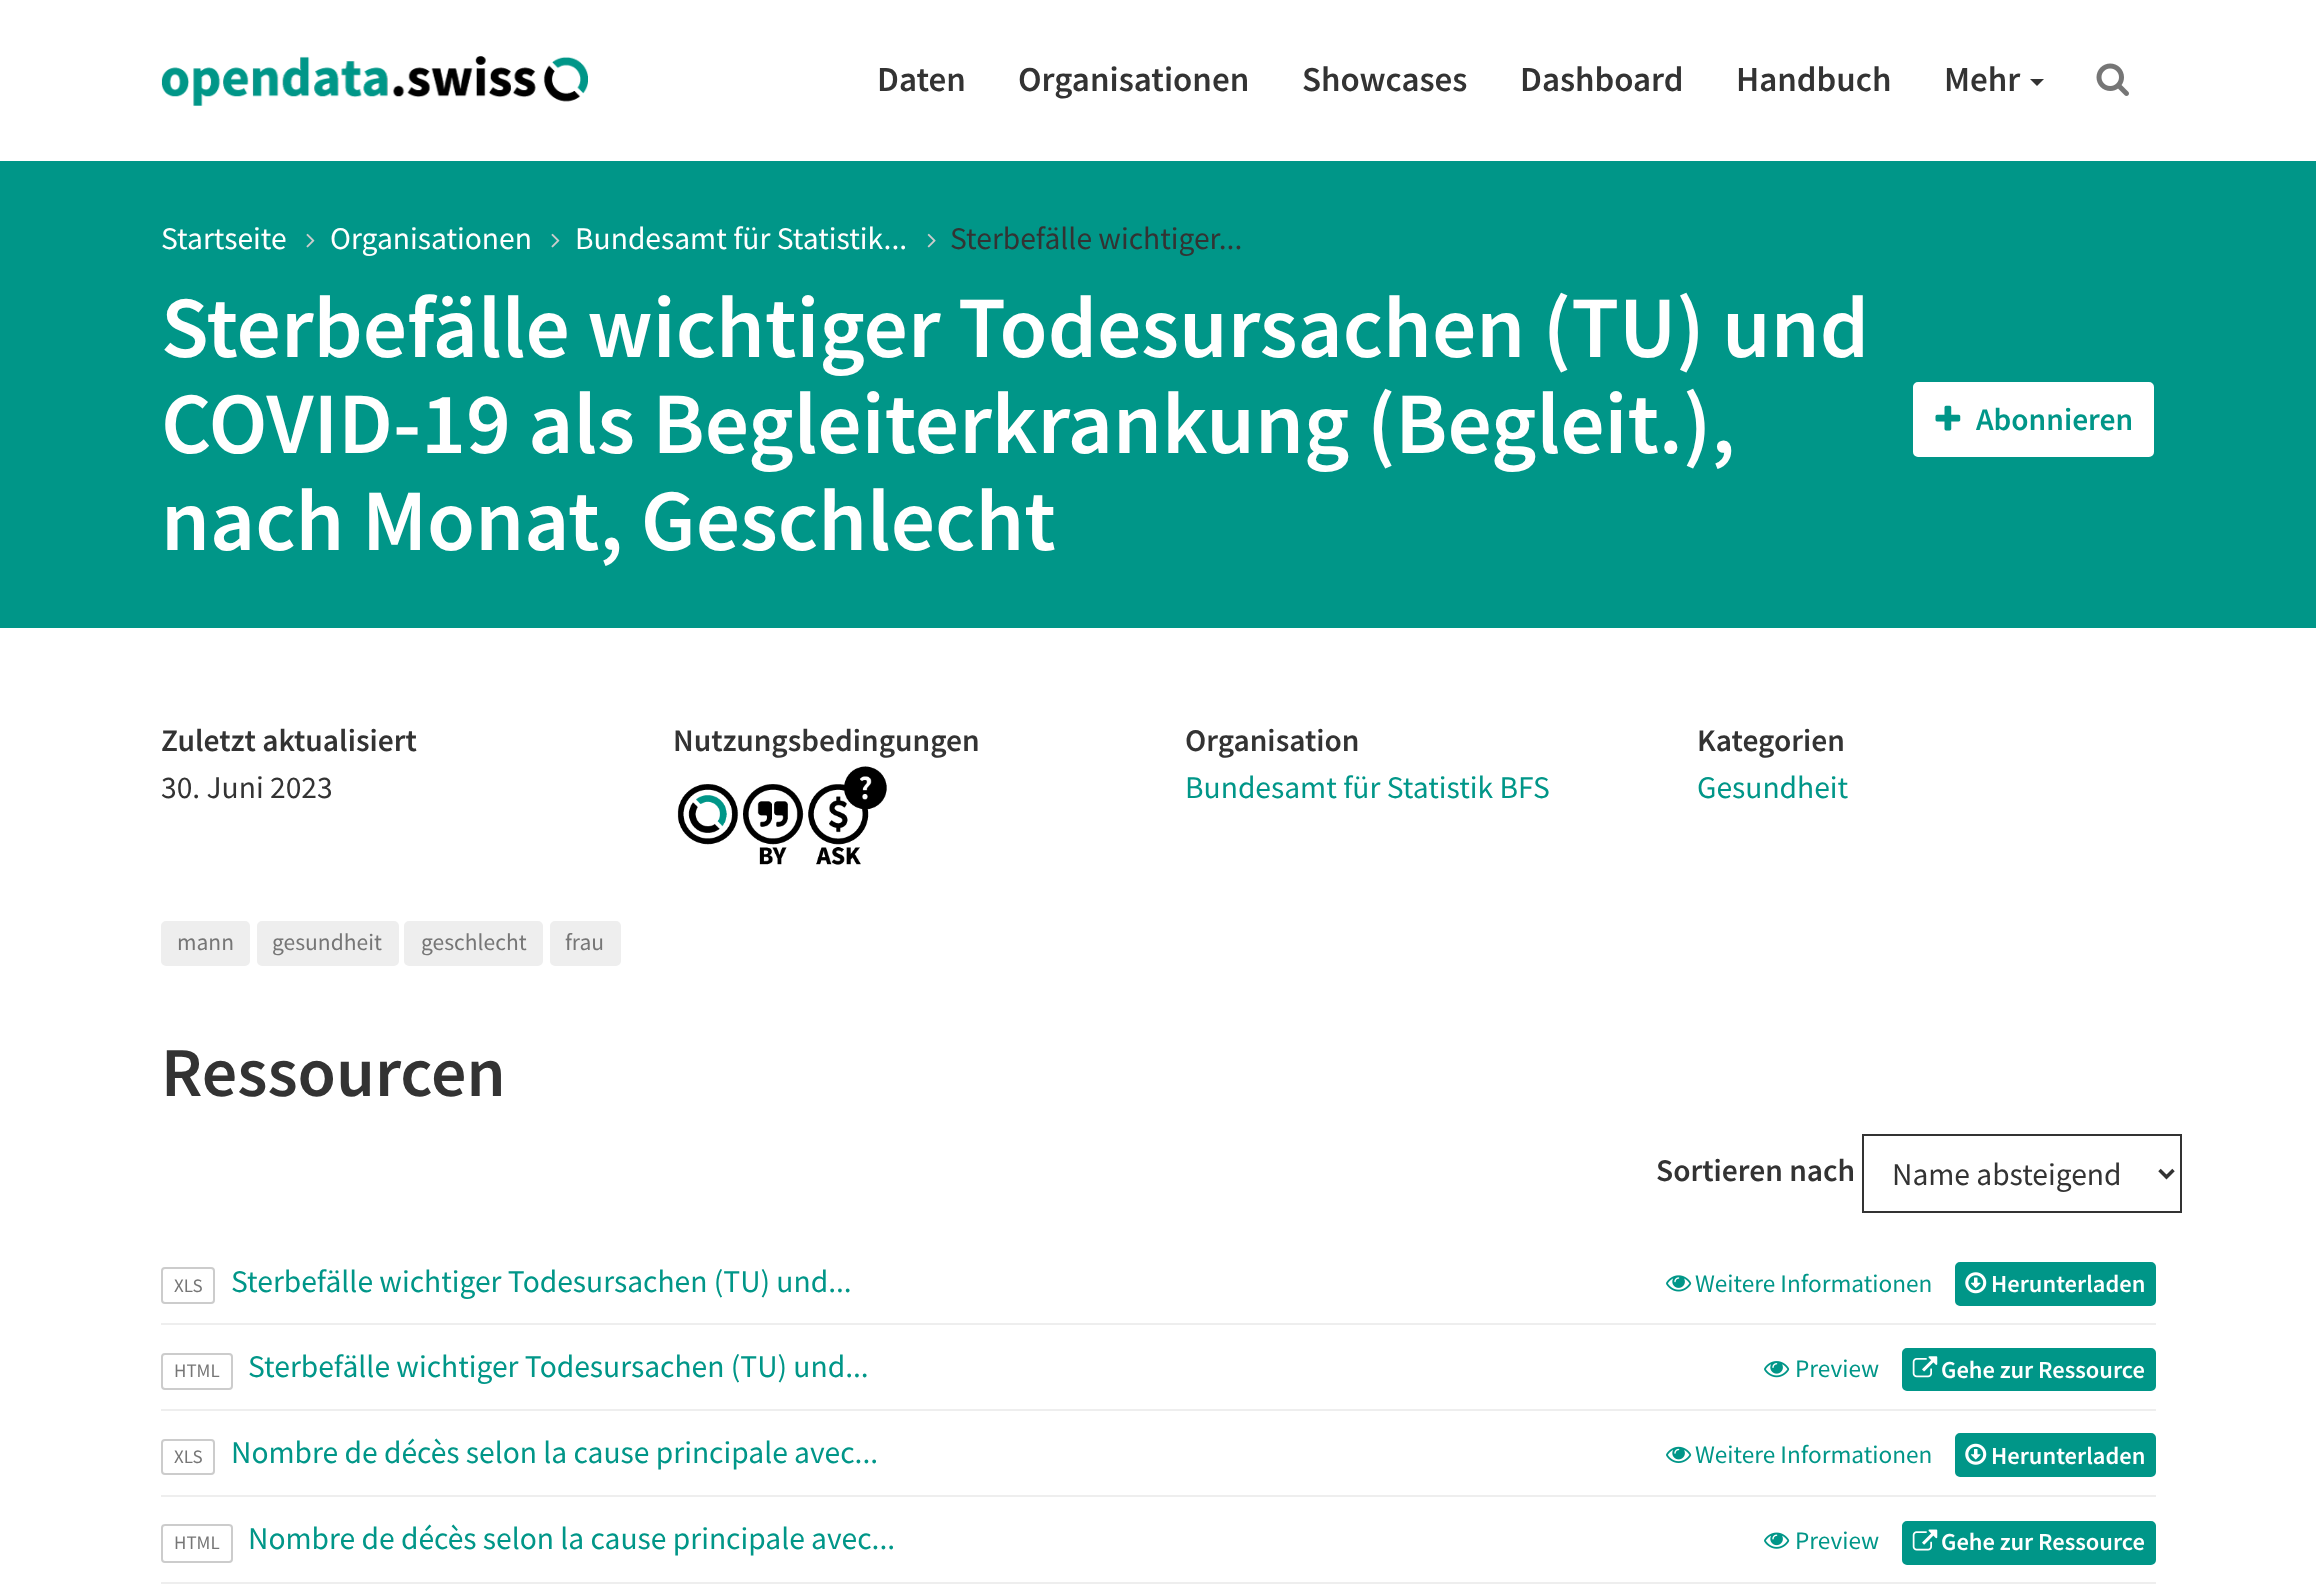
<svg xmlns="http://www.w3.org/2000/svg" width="2316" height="1586">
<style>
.a{font:600 35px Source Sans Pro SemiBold;fill:#333}
.b{font:31.5px Source Sans Pro;fill:#fff}
.c{font:31.5px Source Sans Pro;fill:#333}
.d{font:600 87.5px Source Sans Pro SemiBold;fill:#fff}
.e{font:600 31.5px Source Sans Pro SemiBold;fill:#009688}
.f{font:600 31.5px Source Sans Pro SemiBold;fill:#333}
.g{font:31.5px Source Sans Pro;fill:#009688}
.h{font:23.5px Source Sans Pro;fill:#767676}
.i{font:600 70px Source Sans Pro SemiBold;fill:#333}
.j{font:19px Source Sans Pro;fill:#767676}
.k{font:25.25px Source Sans Pro;fill:#009688}
.l{font:600 24.5px Source Sans Pro SemiBold;fill:#fff}
</style>
<rect width="100%" height="100%" fill="#fff"/>
<image href="1.png" x="161" y="56" width="427" height="50"/>
<path fill="#333" d="M2030 79h14l-7 7z"/>
<image href="2.png" x="2096" y="63" width="33" height="33"/>
<path fill="#009688" d="M0 161h2316v467H0z"/>
<image href="3.png" x="306" y="233" width="9" height="15"/>
<image href="3.png" x="551" y="233" width="9" height="15"/>
<image href="4.png" x="927" y="233" width="9" height="15"/>
<rect fill="#fff" stroke="#009688" stroke-width="2" x="1912" y="381" width="243" height="77" rx="6"/>
<image href="5.png" x="1935" y="405" width="26" height="26"/>
<image href="6.png" x="677" y="766" width="210" height="99"/>
<rect fill="#eee" stroke="#eee" stroke-width="2" x="162" y="922" width="87" height="43" rx="4"/>
<rect fill="#eee" stroke="#eee" stroke-width="2" x="258" y="922" width="140" height="43" rx="4"/>
<rect fill="#eee" stroke="#eee" stroke-width="2" x="405" y="922" width="137" height="43" rx="4"/>
<rect fill="#eee" stroke="#eee" stroke-width="2" x="551" y="922" width="69" height="43" rx="4"/>
<path fill="none" stroke="#333" stroke-width="2" d="M1863 1135h318v77H1863z"/>
<path fill="none" stroke="#333" stroke-width="3.5" d="M2159.5 1170l7 7l7-7"/>
<path fill="#eee" d="M161 1323h1995v2H161z"/>
<rect fill="none" stroke="#ccc" stroke-width="2" x="162" y="1268" width="52" height="35" rx="3"/>
<image href="7.png" x="1666" y="1275" width="26" height="17"/>
<rect fill="#009688" stroke="#009688" stroke-width="2" x="1956" y="1263" width="199" height="42" rx="4"/>
<image href="8.png" x="1965" y="1272" width="22" height="22"/>
<path fill="#eee" d="M161 1409h1995v2H161z"/>
<rect fill="none" stroke="#ccc" stroke-width="2" x="162" y="1354" width="70" height="35" rx="3"/>
<image href="9.png" x="1764" y="1361" width="26" height="17"/>
<rect fill="#009688" stroke="#009688" stroke-width="2" x="1903" y="1349" width="252" height="41" rx="4"/>
<image href="10.png" x="1912" y="1356" width="26" height="22"/>
<path fill="#eee" d="M161 1495h1995v2H161z"/>
<rect fill="none" stroke="#ccc" stroke-width="2" x="162" y="1440" width="52" height="34" rx="3"/>
<image href="11.png" x="1666" y="1446" width="26" height="17"/>
<rect fill="#009688" stroke="#009688" stroke-width="2" x="1956" y="1434" width="199" height="42" rx="4"/>
<image href="12.png" x="1965" y="1443" width="22" height="22"/>
<path fill="#eee" d="M161 1582h1995v2H161z"/>
<rect fill="none" stroke="#ccc" stroke-width="2" x="162" y="1525" width="70" height="37" rx="3"/>
<image href="13.png" x="1764" y="1532" width="26" height="17"/>
<rect fill="#009688" stroke="#009688" stroke-width="2" x="1903" y="1522" width="252" height="42" rx="4"/>
<image href="14.png" x="1912" y="1529" width="26" height="22"/>
<text class="a" x="877" y="91">Daten</text>
<text class="a" x="1018" y="91">Organisationen</text>
<text class="a" x="1302" y="91">Showcases</text>
<text class="a" x="1520" y="91">Dashboard</text>
<text class="a" x="1736" y="91">Handbuch</text>
<text class="a" x="1944" y="91">Mehr</text>
<text class="b" x="161" y="249">Startseite</text>
<text class="b" x="330" y="249">Organisationen</text>
<text class="b" x="575" y="249">Bundesamt für Statistik...</text>
<text class="c" x="950" y="249">Sterbefälle wichtiger...</text>
<text class="d" x="161" y="357">Sterbefälle wichtiger Todesursachen (TU) und</text>
<text class="d" x="161" y="453">COVID-19 als Begleiterkrankung (Begleit.),</text>
<text class="d" x="161" y="550">nach Monat, Geschlecht</text>
<text class="e" x="1976" y="430">Abonnieren</text>
<text class="f" x="161" y="751">Zuletzt aktualisiert</text>
<text class="c" x="161" y="798">30. Juni 2023</text>
<text class="f" x="673" y="751">Nutzungsbedingungen</text>
<text class="f" x="1185" y="751">Organisation</text>
<text class="g" x="1185" y="798">Bundesamt für Statistik BFS</text>
<text class="f" x="1697" y="751">Kategorien</text>
<text class="g" x="1697" y="798">Gesundheit</text>
<text class="h" x="177" y="950">mann</text>
<text class="h" x="272" y="950">gesundheit</text>
<text class="h" x="421" y="950">geschlecht</text>
<text class="h" x="565" y="950">frau</text>
<text class="i" x="161" y="1096">Ressourcen</text>
<text class="f" x="1656" y="1181">Sortieren nach</text>
<text class="c" x="1892" y="1185">Name absteigend</text>
<text class="j" x="174" y="1292">XLS</text>
<text class="g" x="231" y="1292">Sterbefälle wichtiger Todesursachen (TU) und...</text>
<text class="k" x="1695" y="1292">Weitere Informationen</text>
<text class="l" x="1991" y="1292">Herunterladen</text>
<text class="j" x="174" y="1377">HTML</text>
<text class="g" x="248" y="1377">Sterbefälle wichtiger Todesursachen (TU) und...</text>
<text class="k" x="1795" y="1377">Preview</text>
<text class="l" x="1941" y="1378">Gehe zur Ressource</text>
<text class="j" x="174" y="1463">XLS</text>
<text class="g" x="231" y="1463">Nombre de décès selon la cause principale avec...</text>
<text class="k" x="1695" y="1463">Weitere Informationen</text>
<text class="l" x="1991" y="1464">Herunterladen</text>
<text class="j" x="174" y="1549">HTML</text>
<text class="g" x="248" y="1549">Nombre de décès selon la cause principale avec...</text>
<text class="k" x="1795" y="1549">Preview</text>
<text class="l" x="1941" y="1550">Gehe zur Ressource</text>
</svg>
